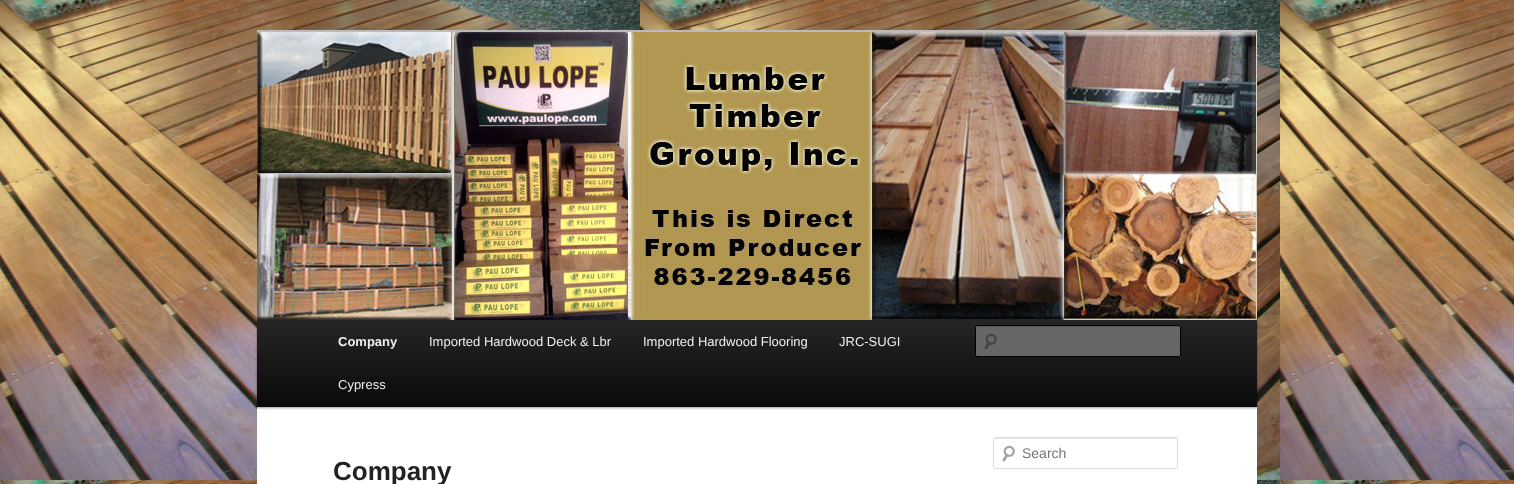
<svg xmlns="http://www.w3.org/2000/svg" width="1514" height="484">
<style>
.a{font:bold 13px Liberation Sans;fill:#eee}
.b{font:13px Liberation Sans;fill:#eee}
.c{font:14px Liberation Sans;fill:#757575}
.d{font:bold 26px Liberation Sans;fill:#222}
</style>
<defs>
<linearGradient id="g1" gradientUnits="userSpaceOnUse" x1="757" y1="320" x2="757" y2="407"><stop offset="0" stop-color="#252525"/><stop offset="1" stop-color="#0a0a0a"/></linearGradient>
<clipPath id="clip1"><path d="M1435 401h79v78h-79zm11 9h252c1 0 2 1 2 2v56c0 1-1 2-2 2h-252c-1 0-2-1-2-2v-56c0-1 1-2 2-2z" clip-rule="evenodd"/></clipPath>
</defs>
<rect width="100%" height="100%" fill="#fff"/>
<image href="1.png" x="0" y="0" width="1514" height="484"/>
<path fill="#fff" d="M257 407h1000v77H257z"/>
<path fill="#bbb" d="M257 30h1000v2H257z"/>
<path fill="#00000066" filter="blur(1px)" d="M257 321h1000v87H257z"/>
<image href="2.png" x="257" y="32" width="1000" height="288"/>
<path fill="url(#g1)" d="M257 320h1000v87H257z"/>
<rect fill="#666" x="975" y="325" width="206" height="32" rx="2"/>
<image href="3.png" x="984" y="333" width="13" height="17"/>
<path fill="#5c5c5c" d="M977 327h203v1v-2h-1h-202c-1 0-1 1-1 2c0-1 0-1 1-1z"/>
<rect fill="none" stroke="#000" x="975.5" y="325.5" width="205" height="31" rx="1.5"/>
<image href="4.png" x="1002" y="445" width="13" height="17"/>
<path fill="#e6e6e6" d="M995 439h182v1c0-1 0-2-1-2h-182v2c0-1 0-1 1-1z"/>
<rect fill="none" stroke="#ddd" x="993.5" y="437.5" width="184" height="31" rx="1.5"/>
<g clip-path="url(#clip1)">
<rect fill="#808080" filter="blur(2.5px)" x="1444" y="410" width="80" height="60" rx="2"/>
</g>
<text class="a" x="338" y="346">Company</text>
<text class="b" x="429" y="346">Imported Hardwood Deck &amp; Lbr</text>
<text class="b" x="643" y="346">Imported Hardwood Flooring</text>
<text class="b" x="839" y="346">JRC-SUGI</text>
<text class="b" x="338" y="389">Cypress</text>
<text class="c" x="1022" y="458">Search</text>
<text class="d" x="333" y="480">Company</text>
</svg>
